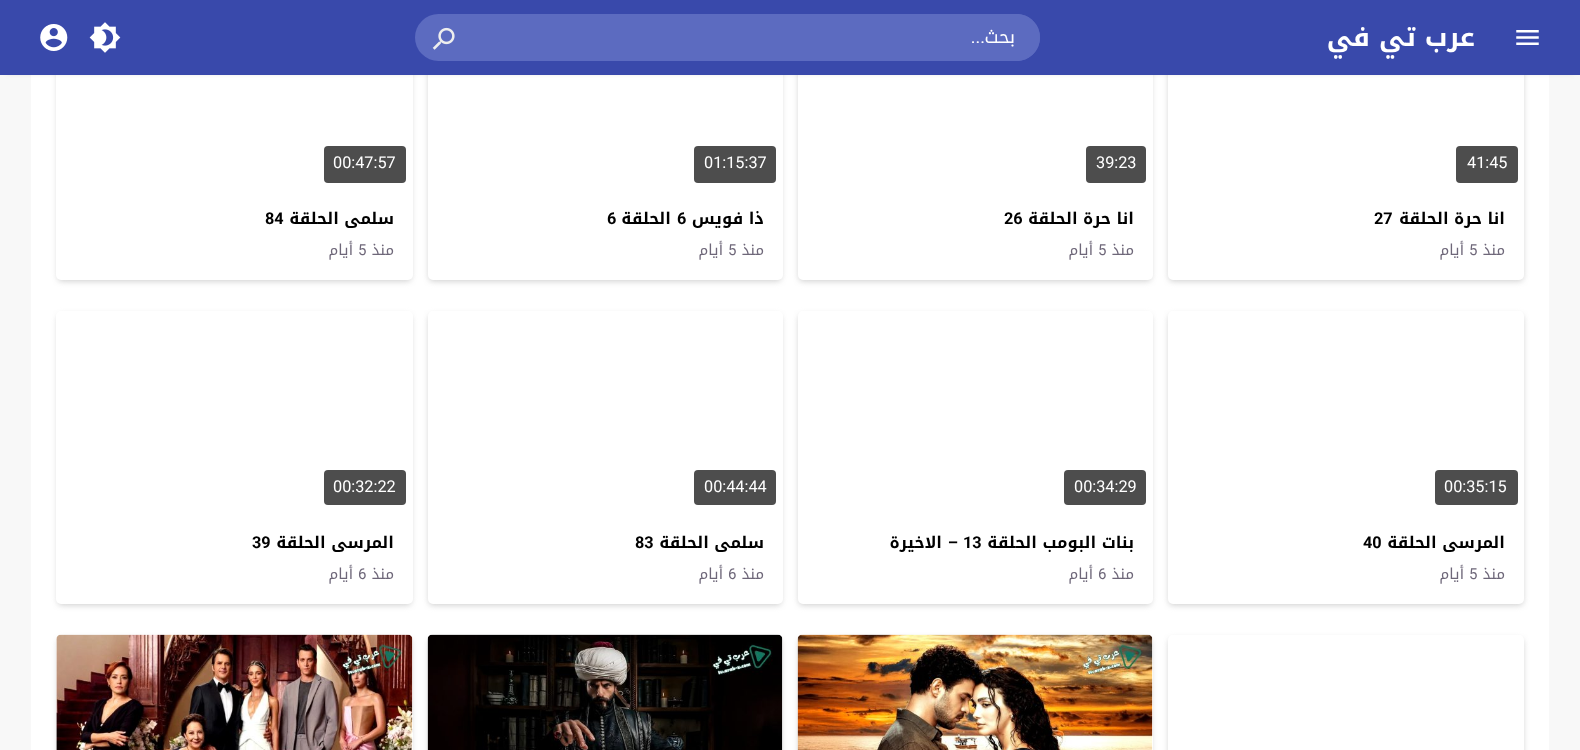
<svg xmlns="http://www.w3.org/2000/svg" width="1580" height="750">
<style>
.a{font:bold 26.25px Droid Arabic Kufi;direction:rtl;fill:#fff}
.b{font:18px Droid Arabic Kufi;direction:rtl;fill:#fff}
.c{font:18px Roboto;direction:rtl;fill:#fff}
.d{font:16.25px Roboto;fill:#fff}
.e{font:bold 16.25px Droid Arabic Kufi;direction:rtl;fill:#000}
.f{font:bold 16.25px Roboto;fill:#000}
.g{font:15px Droid Arabic Kufi;direction:rtl;fill:#6e6779}
.h{font:15px Roboto;fill:#6e6779}
.i{font:bold 16.25px Roboto;direction:rtl;fill:#000}
</style>
<rect width="100%" height="100%" fill="#f8f8f8"/>
<path fill="#fff" d="M31 75h1518v675H31z"/>
<rect fill="#ccc" filter="blur(3px)" x="1169" y="-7" width="354" height="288" rx="4"/>
<rect fill="#fff" x="1168" y="-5" width="356" height="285" rx="5"/>
<rect fill="#ccc" filter="blur(3px)" x="799" y="-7" width="352" height="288" rx="4"/>
<rect fill="#fff" x="798" y="-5" width="355" height="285" rx="5"/>
<rect fill="#ccc" filter="blur(3px)" x="429" y="-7" width="352" height="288" rx="4"/>
<rect fill="#fff" x="428" y="-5" width="355" height="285" rx="5"/>
<rect fill="#ccc" filter="blur(3px)" x="58" y="-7" width="353" height="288" rx="4"/>
<rect fill="#fff" x="56" y="-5" width="357" height="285" rx="5"/>
<path fill="#999" filter="blur(3px)" d="M6 9h1568v62H6z"/>
<path fill="#3949ab" d="M0 0h1580v75H0z"/>
<image href="1.png" x="1516" y="30" width="23" height="15"/>
<rect fill="#5c6bc0" x="415" y="14" width="625" height="47" rx="23.5"/>
<path fill="#5c6bc0" d="M478 14h538.5c13 0 23.5 10.5 23.5 23.5c0 13-10.5 23.5-23.5 23.5h-538.5z"/>
<image href="2.png" x="432" y="27" width="23" height="23"/>
<image href="3.png" x="89" y="22" width="32" height="31"/>
<image href="4.png" x="40" y="24" width="28" height="27"/>
<rect fill="#4d4d4d" x="1456" y="146" width="62" height="37" rx="4"/>
<rect fill="#4d4d4d" x="1086" y="146" width="60" height="37" rx="4"/>
<rect fill="#4d4d4d" x="694" y="146" width="82" height="37" rx="4"/>
<rect fill="#4d4d4d" x="324" y="146" width="82" height="37" rx="4"/>
<rect fill="#ccc" filter="blur(3px)" x="1169" y="315" width="354" height="290" rx="4"/>
<rect fill="#fff" x="1168" y="311" width="356" height="293" rx="5"/>
<rect fill="#4d4d4d" x="1435" y="470" width="83" height="35" rx="4"/>
<rect fill="#ccc" filter="blur(3px)" x="799" y="315" width="352" height="290" rx="4"/>
<rect fill="#fff" x="798" y="311" width="355" height="293" rx="5"/>
<rect fill="#4d4d4d" x="1064" y="470" width="82" height="35" rx="4"/>
<rect fill="#ccc" filter="blur(3px)" x="429" y="315" width="352" height="290" rx="4"/>
<rect fill="#fff" x="428" y="311" width="355" height="293" rx="5"/>
<rect fill="#4d4d4d" x="694" y="470" width="82" height="35" rx="4"/>
<rect fill="#ccc" filter="blur(3px)" x="58" y="315" width="353" height="290" rx="4"/>
<rect fill="#fff" x="56" y="311" width="357" height="293" rx="5"/>
<rect fill="#4d4d4d" x="324" y="470" width="82" height="35" rx="4"/>
<rect fill="#ccc" filter="blur(3px)" x="1169" y="639" width="354" height="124" rx="4"/>
<rect fill="#fff" x="1168" y="635" width="356" height="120" rx="5"/>
<rect fill="#ccc" filter="blur(3px)" x="799" y="639" width="352" height="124" rx="4"/>
<rect fill="#fff" x="798" y="635" width="355" height="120" rx="5"/>
<image href="5.png" x="797" y="634" width="356" height="116"/>
<rect fill="#ccc" filter="blur(3px)" x="429" y="639" width="352" height="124" rx="4"/>
<rect fill="#fff" x="428" y="635" width="355" height="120" rx="5"/>
<image href="6.png" x="427" y="634" width="356" height="116"/>
<rect fill="#ccc" filter="blur(3px)" x="58" y="639" width="353" height="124" rx="4"/>
<rect fill="#fff" x="56" y="635" width="357" height="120" rx="5"/>
<image href="7.png" x="56" y="634" width="357" height="116"/>
<text class="a" x="1475" y="46">عرب تي في</text>
<text class="b" x="1015" y="43">بحث</text>
<text class="c" x="985" y="43">...</text>
<text class="d" x="1467" y="168">41:45</text>
<text class="e" x="1505" y="224">انا حرة الحلقة</text>
<text class="f" x="1374" y="224">27</text>
<text class="g" x="1505" y="255">منذ</text>
<text class="h" x="1469" y="255">5</text>
<text class="g" x="1464" y="255">أيام</text>
<text class="d" x="1096" y="168">39:23</text>
<text class="e" x="1134" y="224">انا حرة الحلقة</text>
<text class="f" x="1004" y="224">26</text>
<text class="g" x="1134" y="255">منذ</text>
<text class="h" x="1098" y="255">5</text>
<text class="g" x="1093" y="255">أيام</text>
<text class="d" x="704" y="168">01:15:37</text>
<text class="e" x="764" y="224">ذا فويس</text>
<text class="f" x="677" y="224">6</text>
<text class="e" x="671" y="224">الحلقة</text>
<text class="f" x="607" y="224">6</text>
<text class="g" x="764" y="255">منذ</text>
<text class="h" x="728" y="255">5</text>
<text class="g" x="723" y="255">أيام</text>
<text class="d" x="333" y="168">00:47:57</text>
<text class="e" x="394" y="224">سلمى الحلقة</text>
<text class="f" x="265" y="224">84</text>
<text class="g" x="394" y="255">منذ</text>
<text class="h" x="358" y="255">5</text>
<text class="g" x="353" y="255">أيام</text>
<text class="d" x="1444" y="492">00:35:15</text>
<text class="e" x="1505" y="548">المرسى الحلقة</text>
<text class="f" x="1363" y="548">40</text>
<text class="g" x="1505" y="579">منذ</text>
<text class="h" x="1469" y="579">5</text>
<text class="g" x="1464" y="579">أيام</text>
<text class="d" x="1074" y="492">00:34:29</text>
<text class="e" x="1134" y="548">بنات البومب الحلقة</text>
<text class="f" x="963" y="548">13</text>
<text class="i" x="958" y="548">–</text>
<text class="e" x="942" y="548">الاخيرة</text>
<text class="g" x="1134" y="579">منذ</text>
<text class="h" x="1098" y="579">6</text>
<text class="g" x="1093" y="579">أيام</text>
<text class="d" x="704" y="492">00:44:44</text>
<text class="e" x="764" y="548">سلمى الحلقة</text>
<text class="f" x="635" y="548">83</text>
<text class="g" x="764" y="579">منذ</text>
<text class="h" x="728" y="579">6</text>
<text class="g" x="723" y="579">أيام</text>
<text class="d" x="333" y="492">00:32:22</text>
<text class="e" x="394" y="548">المرسى الحلقة</text>
<text class="f" x="252" y="548">39</text>
<text class="g" x="394" y="579">منذ</text>
<text class="h" x="358" y="579">6</text>
<text class="g" x="353" y="579">أيام</text>
</svg>
